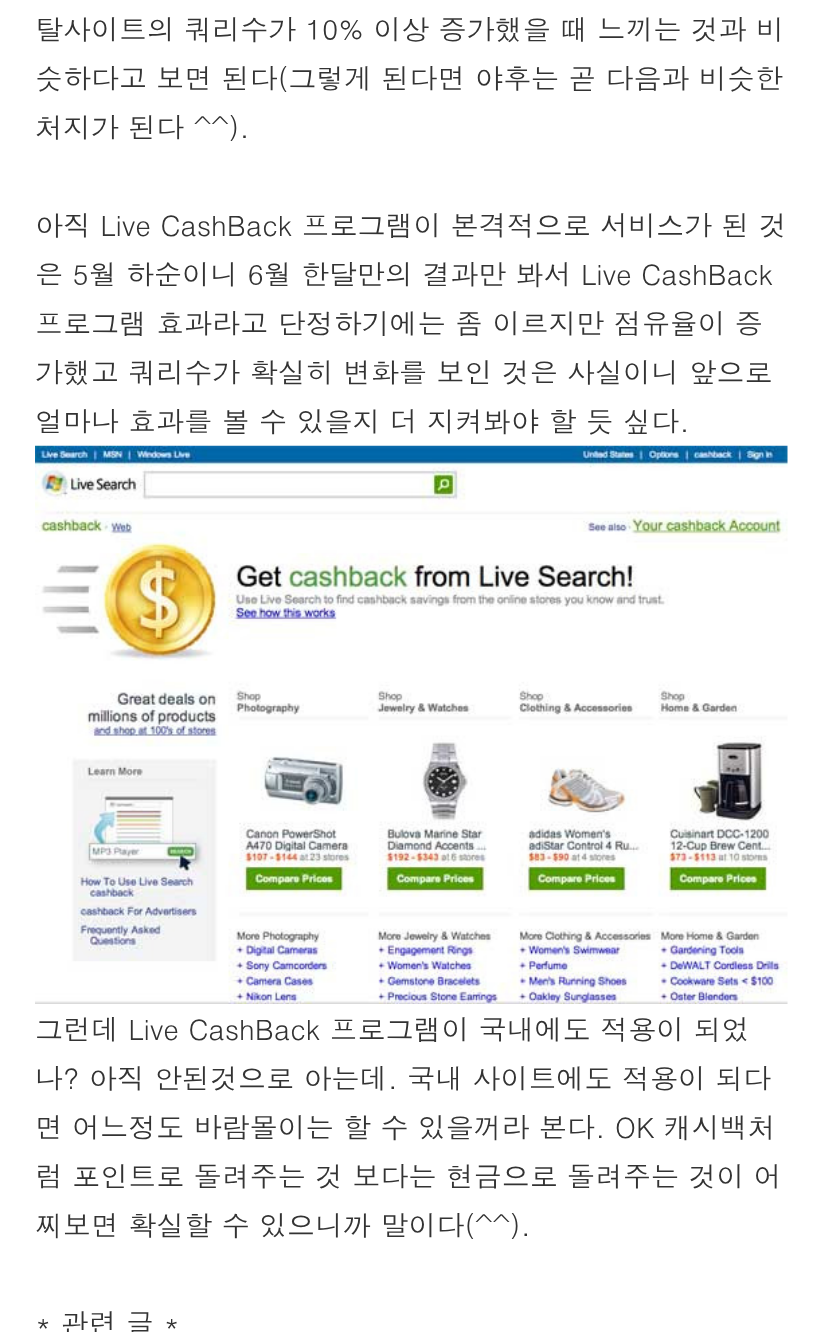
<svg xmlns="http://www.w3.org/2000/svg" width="821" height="1332">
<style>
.a{font:28px Dotum;fill:#333}
</style>
<rect width="100%" height="100%" fill="#fff"/>
<image href="1.png" x="35" y="445" width="753" height="559"/>
<text class="a" x="35" y="40">탈사이트의 쿼리수가 10% 이상 증가했을 때 느끼는 것과 비</text>
<text class="a" x="35" y="89">슷하다고 보면 된다(그렇게 된다면 야후는 곧 다음과 비슷한</text>
<text class="a" x="35" y="138">처지가 된다 ^^).</text>
<text class="a" x="35" y="236">아직 Live CashBack 프로그램이 본격적으로 서비스가 된 것</text>
<text class="a" x="35" y="285">은 5월 하순이니 6월 한달만의 결과만 봐서 Live CashBack</text>
<text class="a" x="35" y="334">프로그램 효과라고 단정하기에는 좀 이르지만 점유율이 증</text>
<text class="a" x="35" y="383">가했고 쿼리수가 확실히 변화를 보인 것은 사실이니 앞으로</text>
<text class="a" x="35" y="432">얼마나 효과를 볼 수 있을지 더 지켜봐야 할 듯 싶다.</text>
<text class="a" x="35" y="1040">그런데 Live CashBack 프로그램이 국내에도 적용이 되었</text>
<text class="a" x="35" y="1089">나? 아직 안된것으로 아는데. 국내 사이트에도 적용이 되다</text>
<text class="a" x="35" y="1138">면 어느정도 바람몰이는 할 수 있을꺼라 본다. OK 캐시백처</text>
<text class="a" x="35" y="1187">럼 포인트로 돌려주는 것 보다는 현금으로 돌려주는 것이 어</text>
<text class="a" x="35" y="1236">찌보면 확실할 수 있으니까 말이다(^^).</text>
<text class="a" x="35" y="1334">* 관련 글 *</text>
</svg>
